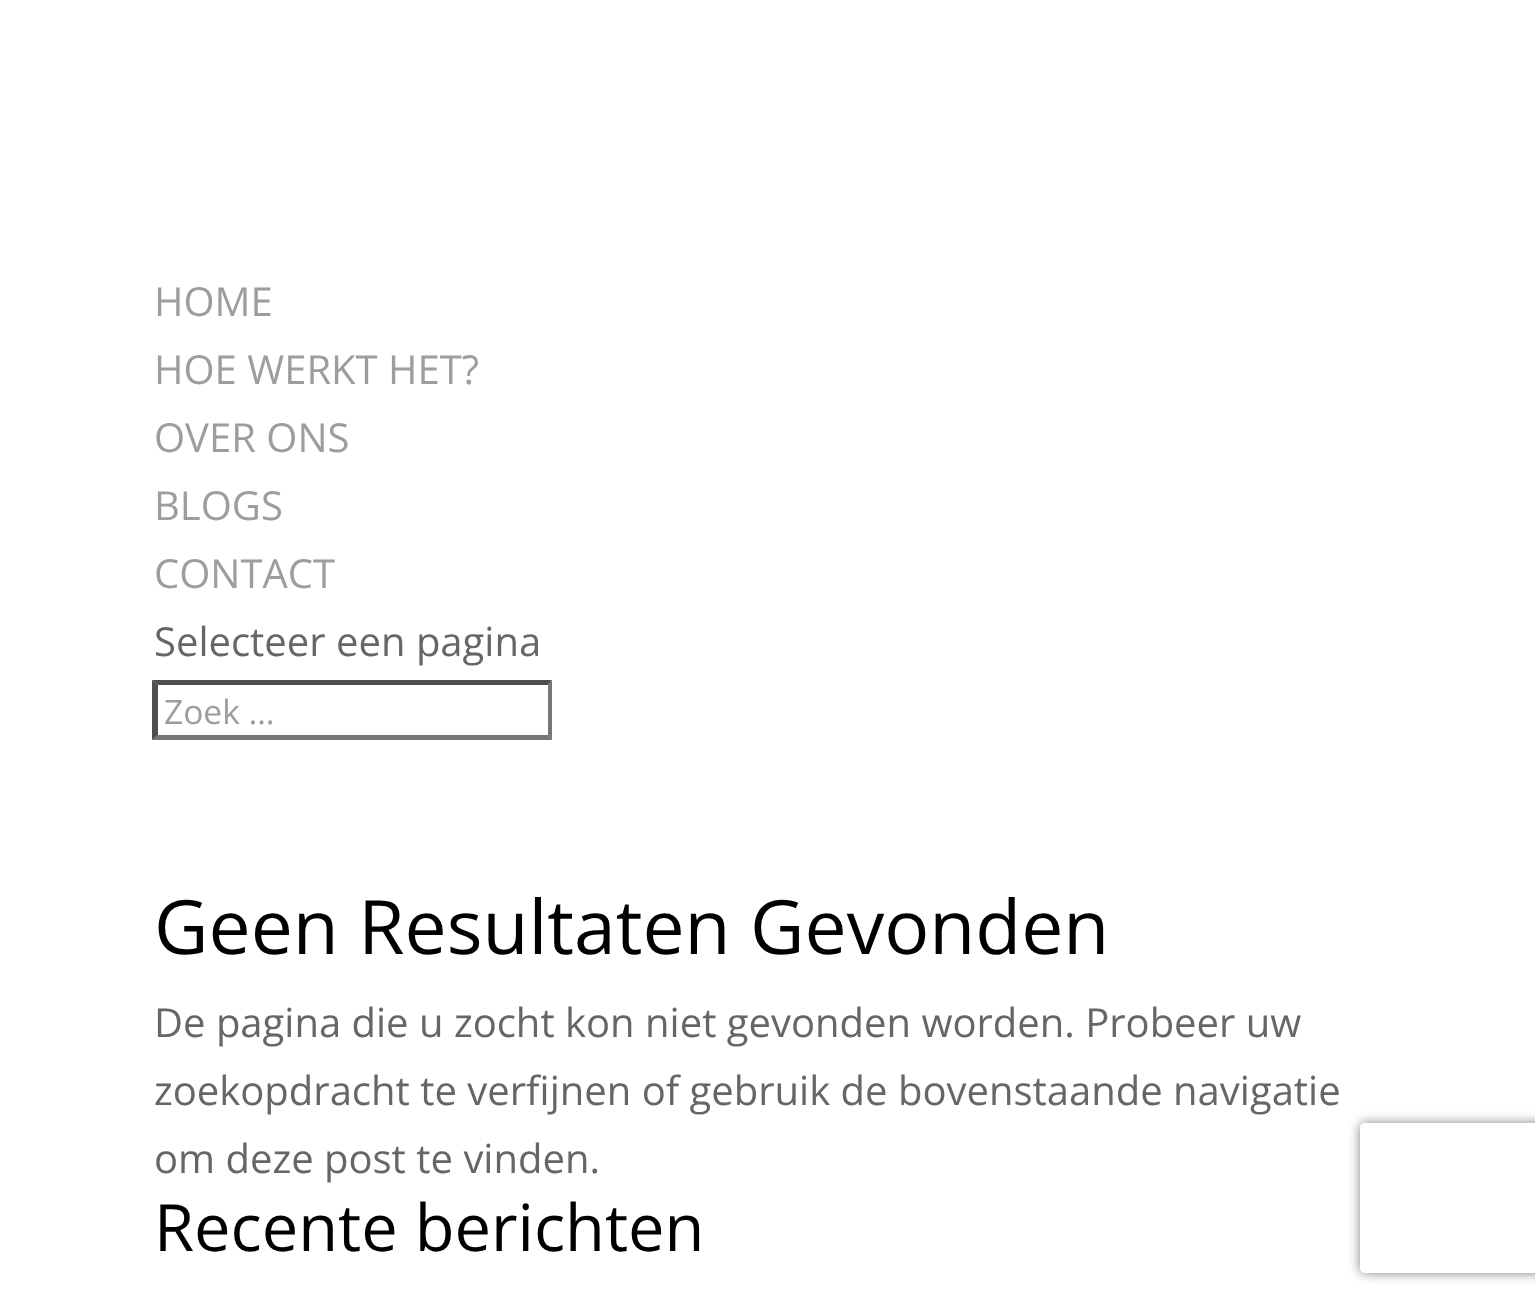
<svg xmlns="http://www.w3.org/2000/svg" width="1535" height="1307">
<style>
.a{font:40px Open Sans;fill:#9d9d9d}
.b{font:40px Open Sans;fill:#666}
.c{font:33.5px Open Sans;fill:#9d9d9d}
.d{font:75px Open Sans;fill:#000}
.e{font:65px Open Sans;fill:#000}
</style>
<defs>
<clipPath id="clip1"><path d="M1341 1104h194v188h-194zm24 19h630c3 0 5 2 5 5v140c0 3-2 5-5 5h-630c-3 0-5-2-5-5v-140c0-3 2-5 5-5z" clip-rule="evenodd"/></clipPath>
</defs>
<rect width="100%" height="100%" fill="#fff"/>
<path fill="#4f4f4f" d="M152 680h400l-4 5h-390z"/>
<path fill="#767676" d="M552 680v60l-4-5v-50z"/>
<path fill="#767676" d="M552 740h-400l6-5h390z"/>
<path fill="#4f4f4f" d="M152 740v-60l6 5v50z"/>
<g clip-path="url(#clip1)">
<rect fill="#808080" filter="blur(6px)" x="1360" y="1123" width="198" height="150" rx="5"/>
</g>
<text class="a" x="154" y="316">HOME</text>
<text class="a" x="154" y="384">HOE WERKT HET?</text>
<text class="a" x="154" y="452">OVER ONS</text>
<text class="a" x="154" y="520">BLOGS</text>
<text class="a" x="154" y="588">CONTACT</text>
<text class="b" x="154" y="656">Selecteer een pagina</text>
<text class="c" x="164" y="724">Zoek …</text>
<text class="d" x="154" y="954">Geen Resultaten Gevonden</text>
<text class="b" x="154" y="1037">De pagina die u zocht kon niet gevonden worden. Probeer uw</text>
<text class="b" x="154" y="1105">zoekopdracht te verfijnen of gebruik de bovenstaande navigatie</text>
<text class="b" x="154" y="1173">om deze post te vinden.</text>
<text class="e" x="154" y="1251">Recente berichten</text>
</svg>
